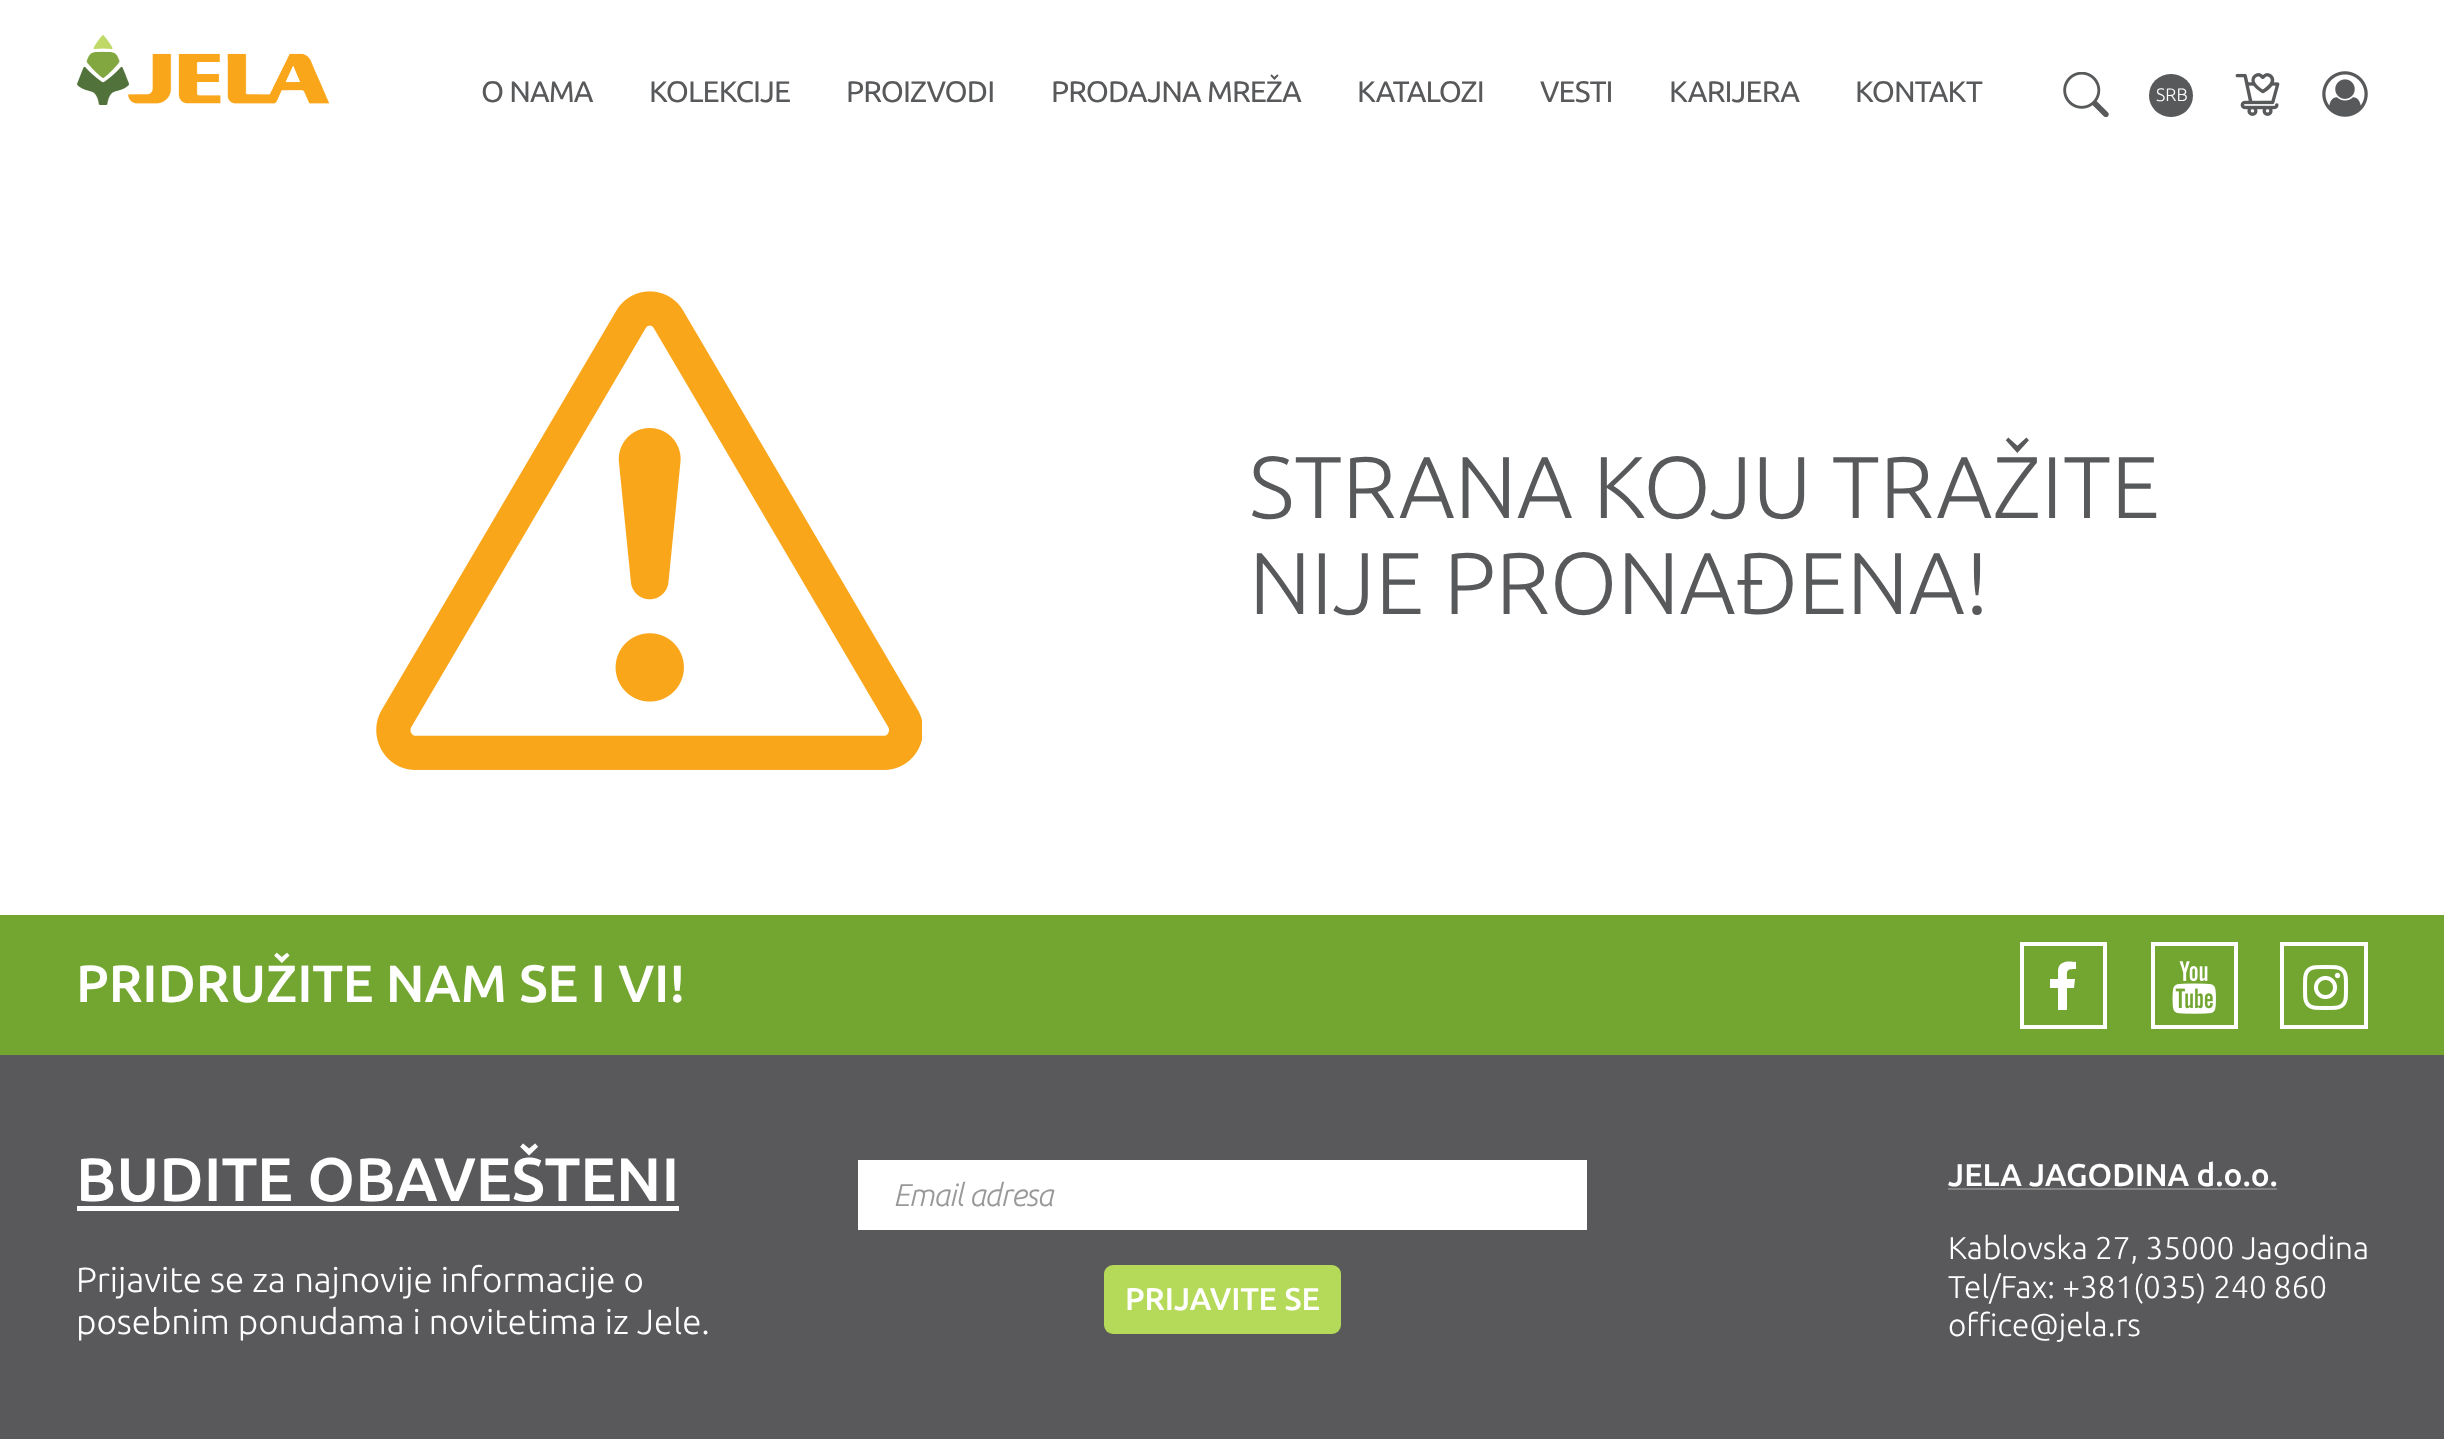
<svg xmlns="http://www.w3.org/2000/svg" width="2444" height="1439">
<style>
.a{font:29.75px Ubuntu;letter-spacing:-0.9px;fill:#58595b}
.b{font:300 18px Ubuntu;fill:#fff}
.c{font:300 87.5px Ubuntu;fill:#58595b}
.d{font:500 52.5px Ubuntu;fill:#fff}
.e{font:500 61.25px Ubuntu;fill:#fff}
.f{font:300 35px Ubuntu;fill:#fff}
.g{font:italic 300 31.5px Ubuntu;letter-spacing:-1px;fill:#999}
.h{font:500 31.5px Ubuntu;fill:#fff}
.i{font:300 31.5px Ubuntu;fill:#fff}
</style>
<rect width="100%" height="100%" fill="#fff"/>
<image href="1.png" x="77" y="35" width="252" height="70"/>
<image href="2.png" x="2063" y="72" width="46" height="45"/>
<rect fill="#57595b" x="2149" y="74" width="44" height="43" rx="21.5"/>
<image href="3.png" x="2235" y="73" width="45" height="43"/>
<image href="4.png" x="2322" y="71" width="46" height="46"/>
<image href="5.png" x="376" y="291" width="546" height="479"/>
<path fill="#59595b" d="M0 1055h2444v384H0z"/>
<path fill="#72a631" d="M0 915h2444v140H0z"/>
<path fill="none" stroke="#fff" stroke-width="4" d="M2022 944h83v83H2022z"/>
<path fill="#fff" d="M2076 962v7c-10 0-9 1-9 10h8l-1 9h-7v22h-9v-22h-8v-9h8v-9c1-9 10-9 18-8z"/>
<path fill="none" stroke="#fff" stroke-width="4" d="M2153 944h83v83H2153z"/>
<image href="6.png" x="2172" y="961" width="44" height="53"/>
<path fill="none" stroke="#fff" stroke-width="4" d="M2282 944h84v83H2282z"/>
<image href="7.png" x="2303" y="965" width="45" height="45"/>
<path fill="#fff" d="M77 1206h602v5H77z"/>
<path fill="#fff" d="M858 1160h729v70H858z"/>
<rect fill="#b5d958" x="1104" y="1265" width="237" height="69" rx="9"/>
<path fill="#838384" d="M1948 1188h329v2H1948z"/>
<text class="a" x="481" y="102">O NAMA</text>
<text class="a" x="649" y="102">KOLEKCIJE</text>
<text class="a" x="846" y="102">PROIZVODI</text>
<text class="a" x="1051" y="102">PRODAJNA MREŽA</text>
<text class="a" x="1357" y="102">KATALOZI</text>
<text class="a" x="1540" y="102">VESTI</text>
<text class="a" x="1669" y="102">KARIJERA</text>
<text class="a" x="1855" y="102">KONTAKT</text>
<text class="b" x="2156" y="101">SRB</text>
<text class="c" x="1249" y="518">STRANA KOJU TRAŽITE</text>
<text class="c" x="1249" y="614">NIJE PRONAĐENA!</text>
<text class="d" x="76" y="1002">PRIDRUŽITE NAM SE I VI!</text>
<text class="e" x="76" y="1201">BUDITE OBAVEŠTENI</text>
<text class="f" x="76" y="1292">Prijavite se za najnovije informacije o</text>
<text class="f" x="76" y="1334">posebnim ponudama i novitetima iz Jele.</text>
<text class="g" x="893" y="1206">Email adresa</text>
<text class="h" x="1125" y="1310">PRIJAVITE SE</text>
<text class="h" x="1948" y="1186">JELA JAGODINA d.o.o.</text>
<text class="i" x="1948" y="1259">Kablovska 27, 35000 Jagodina</text>
<text class="i" x="1948" y="1298">Tel/Fax: +381(035) 240 860</text>
<text class="i" x="1948" y="1336">office@jela.rs</text>
</svg>
